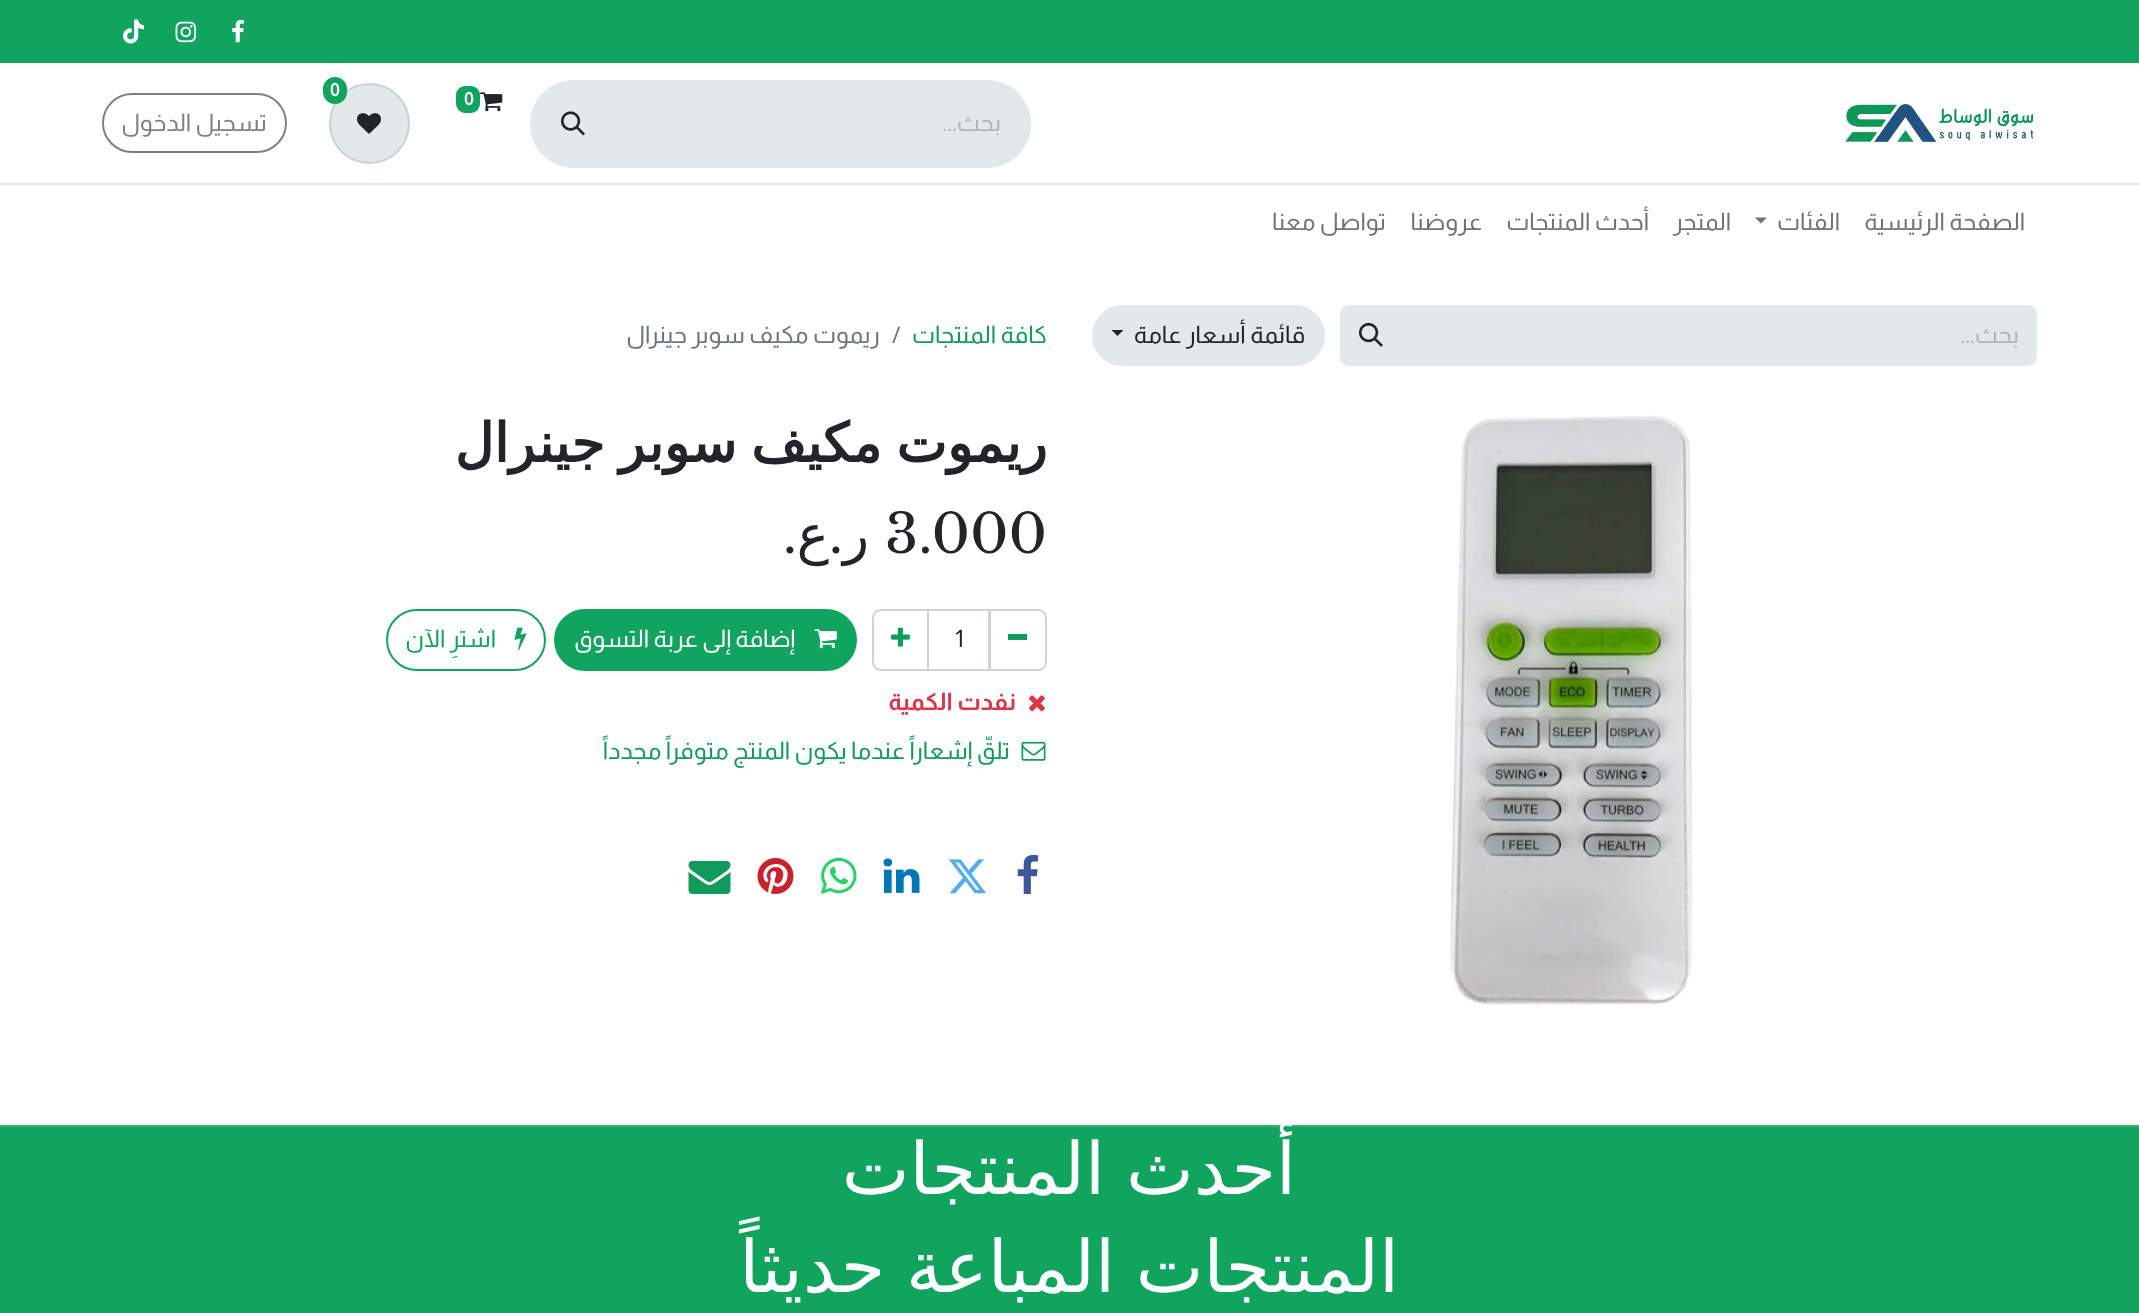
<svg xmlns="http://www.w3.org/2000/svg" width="2139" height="1313">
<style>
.a{font:bold 18px Almarai;fill:#fff}
.b{font:24px Almarai;direction:rtl;fill:#adb5bd}
.c{font:24px Almarai;direction:rtl;fill:#808080}
.d{font:24px Almarai;direction:rtl;fill:#737373}
.e{font:24px Almarai;direction:rtl;fill:#212529}
.f{font:24px Almarai;direction:rtl;fill:#109b5a}
.g{font:24px Almarai;fill:#6c757d}
.h{font:24px Almarai;direction:rtl;fill:#6c757d}
.i{font:bold 54px DejaVu Sans;direction:rtl;fill:#212529}
.j{font:54px Libre Baskerville;fill:#212529}
.k{font:54px DejaVu Sans;direction:rtl;fill:#212529}
.l{font:54px Libre Baskerville;direction:rtl;fill:#212529}
.m{font:24px Almarai;fill:#212529}
.n{font:24px Almarai;direction:rtl;fill:#fff}
.o{font:24px Almarai;direction:rtl;fill:#11a45f}
.p{font:bold 24px Almarai;direction:rtl;fill:#dc3545}
.q{font:72px DejaVu Sans;direction:rtl;fill:#fff}
</style>
<defs>
<clipPath id="clip1"><path d="M672 110h329v25H672z"/></clipPath>
</defs>
<rect width="100%" height="100%" fill="#fff"/>
<path fill="#11a45f" d="M0 0h2139v63H0z"/>
<image href="1.png" x="232" y="19" width="12" height="24"/>
<image href="2.png" x="175" y="21" width="22" height="22"/>
<image href="3.png" x="123" y="19" width="21" height="25"/>
<image href="4.png" x="1845" y="104" width="189" height="38"/>
<circle fill="#e3e9eb" cx="369.5" cy="123.5" r="40.5"/>
<circle fill="none" stroke="#0000001a" stroke-width="2" cx="369.5" cy="123.5" r="39.5"/>
<rect fill="#11a45f" x="323" y="77" width="24" height="27" rx="12"/>
<image href="5.png" x="357" y="113" width="24" height="21"/>
<image href="6.png" x="480" y="92" width="23" height="20"/>
<rect fill="#11a45f" x="456" y="86" width="24" height="27" rx="9"/>
<path fill="#e3e9eb" d="M615 80h372c24.5 0 44 19.5 44 44c0 24.5-19.5 44-44 44h-372z"/>
<path fill="#e3e9eb" d="M574 80h43v88h-43c-24.5 0-44-19.5-44-44c0-24.5 19.5-44 44-44z"/>
<image href="7.png" x="561" y="111" width="24" height="25"/>
<rect fill="none" stroke="#808080" stroke-width="2" x="103" y="94" width="183" height="58" rx="29"/>
<path fill="#e6e6e6" d="M0 183h2139v2H0z"/>
<path fill="#737373" d="M1755 217.5h12l-6 6z"/>
<path fill="#e3e9eb" d="M1401 305h627c5 0 9 4 9 9v43c0 5-4 9-9 9h-627z"/>
<path fill="#e3e9eb" stroke="#e3e9eb" stroke-width="2" d="M1349 306h53v59h-53c-4.5 0-8-3.5-8-8v-43c0-4.5 3.5-8 8-8z"/>
<image href="8.png" x="1359" y="322" width="24" height="25"/>
<rect fill="#e3e9eb" stroke="#e3e9eb" stroke-width="2" x="1093" y="306" width="231" height="59" rx="29.5"/>
<path fill="#212529" d="M1111.5 330h12l-6 6z"/>
<image href="9.png" x="1450" y="415" width="243" height="590"/>
<path fill="none" stroke="#ced4da" stroke-width="2" d="M928 610h61v60H928z"/>
<path fill="none" stroke="#ced4da" stroke-width="2" d="M990 610h48c4.5 0 8 3.5 8 8v44c0 4.5-3.5 8-8 8h-48z"/>
<path fill="#109b5a" d="M1008 634h19v6H1008z"/>
<path fill="none" stroke="#ced4da" stroke-width="2" d="M881 610h47v60h-47c-4.5 0-8-3.5-8-8v-44c0-4.5 3.5-8 8-8z"/>
<image href="10.png" x="891" y="627" width="19" height="20"/>
<rect fill="#11a45f" stroke="#11a45f" stroke-width="2" x="555" y="610" width="301" height="60" rx="30"/>
<image href="11.png" x="814" y="629" width="23" height="20"/>
<rect fill="none" stroke="#11a45f" stroke-width="2" x="387" y="610" width="158" height="60" rx="30"/>
<image href="12.png" x="514" y="627" width="13" height="23"/>
<image href="13.png" x="1029" y="695" width="16" height="17"/>
<image href="14.png" x="1021" y="741" width="25" height="20"/>
<image href="15.png" x="1017" y="855" width="21" height="39"/>
<image href="16.png" x="948" y="859" width="39" height="35"/>
<image href="17.png" x="883" y="858" width="37" height="35"/>
<image href="18.png" x="820" y="857" width="37" height="38"/>
<image href="19.png" x="757" y="858" width="37" height="36"/>
<image href="20.png" x="688" y="861" width="43" height="33"/>
<path fill="#11a45f" d="M0 1127h2139v186H0z"/>
<path fill="#35b277" d="M0 1125h2139v2H0z"/>
<text class="a" x="330" y="96">0</text>
<text class="a" x="464" y="105">0</text>
<g clip-path="url(#clip1)">
<text class="b" x="1001" y="131">بحث...</text>
</g>
<text class="c" x="267" y="131">تسجيل الدخول</text>
<text class="d" x="2025" y="230">الصفحة الرئيسية</text>
<text class="d" x="1840" y="230">الفئات</text>
<text class="d" x="1731" y="230">المتجر</text>
<text class="d" x="1649" y="230">أحدث المنتجات</text>
<text class="d" x="1482" y="230">عروضنا</text>
<text class="d" x="1386" y="230">تواصل معنا</text>
<text class="b" x="2019" y="343">بحث...</text>
<text class="e" x="1305" y="343">قائمة أسعار عامة</text>
<text class="f" x="1047" y="343">كافة المنتجات</text>
<text class="g" x="892" y="343">/</text>
<text class="h" x="880" y="343">ريموت مكيف سوبر جينرال</text>
<text class="i" x="1047" y="462" word-spacing="-3">ريموت مكيف سوبر جينرال</text>
<text class="j" x="885" y="553">3.000</text>
<text class="k" x="869" y="553">ر</text>
<text class="l" x="843" y="553">.</text>
<text class="k" x="829" y="553">ع</text>
<text class="l" x="797" y="553">.</text>
<text class="m" x="955" y="647">1</text>
<text class="n" x="795" y="647">إضافة إلى عربة التسوق</text>
<text class="o" x="496" y="647">اشترِ الآن</text>
<text class="p" x="1016" y="710">نفدت الكمية</text>
<text class="f" x="1010" y="759">تلقّ إشعاراً عندما يكون المنتج متوفراً مجدداً</text>
<text class="q" x="1296" y="1194" word-spacing="-2">أحدث المنتجات</text>
<text class="q" x="1399" y="1292" word-spacing="-2">المنتجات المباعة حديثاً</text>
</svg>
